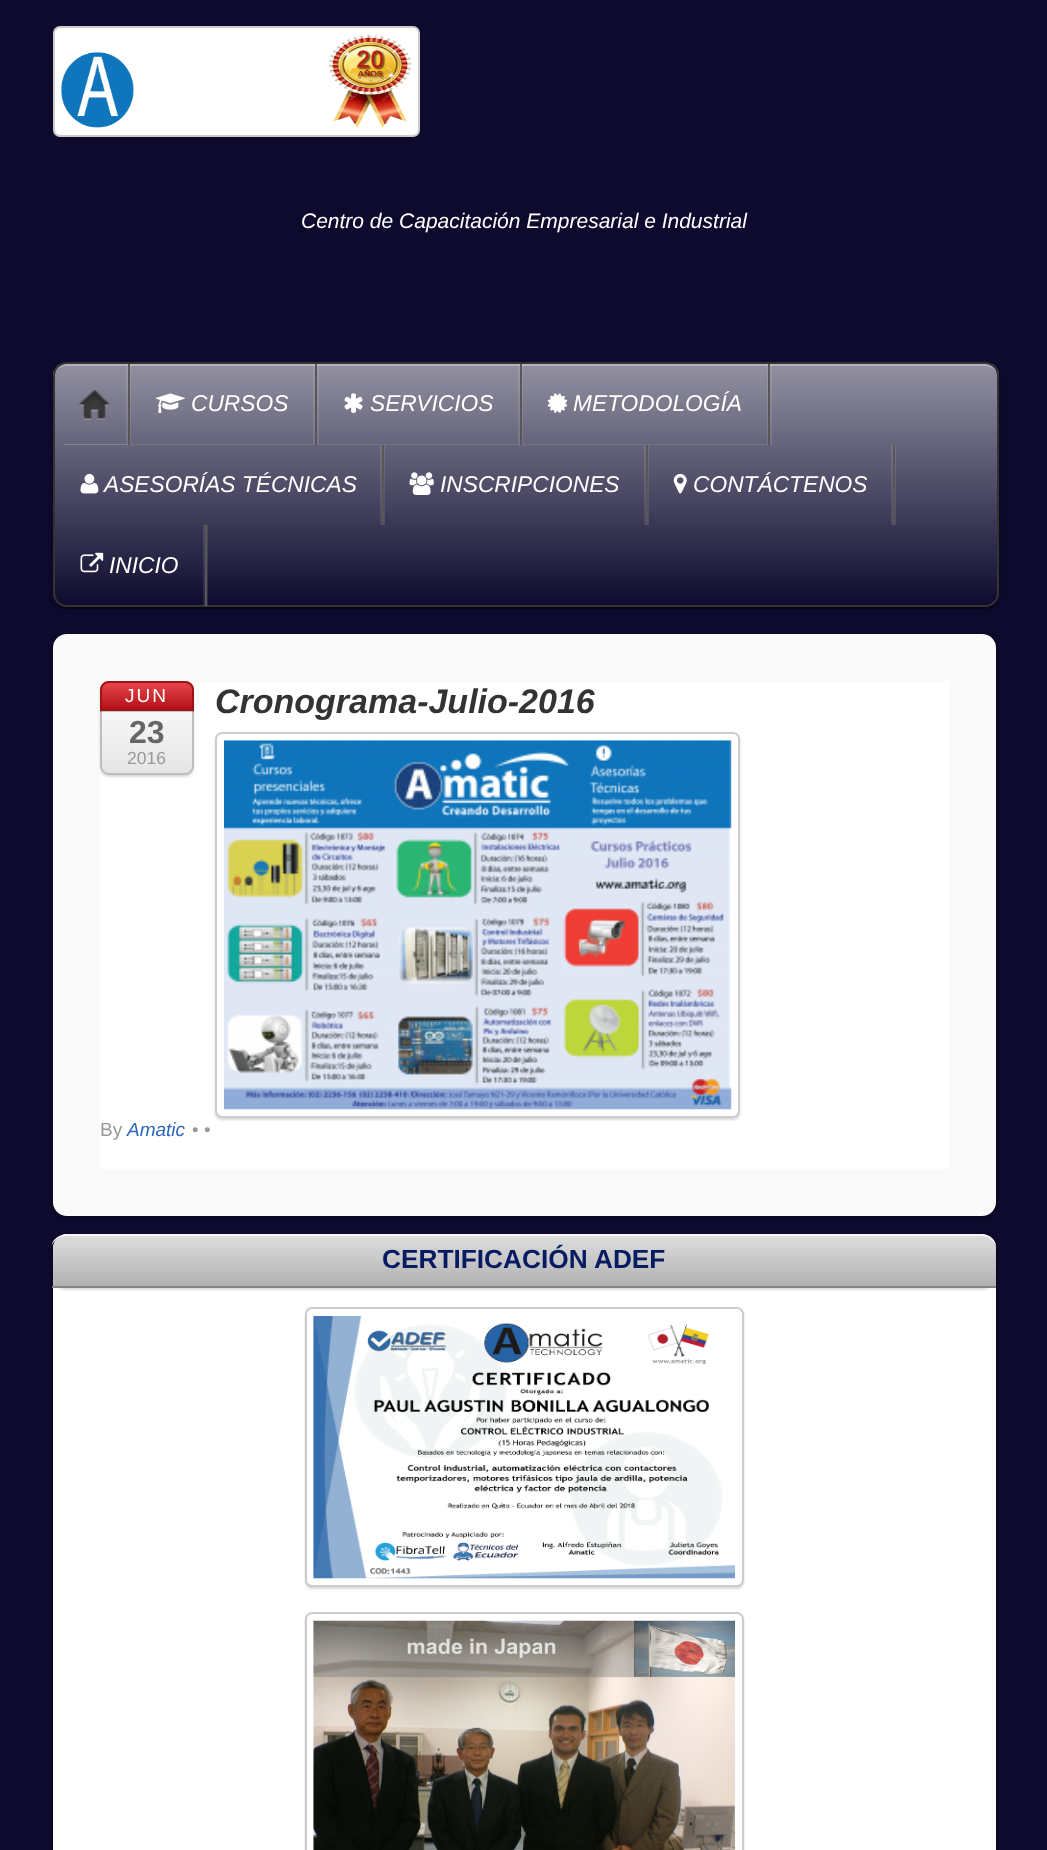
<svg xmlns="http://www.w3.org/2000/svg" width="1047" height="1850">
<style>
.a{font:italic 21px Liberation Sans;fill:#fff}
.b{font:italic 22.75px Liberation Sans;fill:#fff}
.c{font:19px Liberation Sans;letter-spacing:2px;fill:#fff}
.d{font:bold 32px Liberation Sans;fill:#666}
.e{font:17.5px Liberation Sans;fill:#999}
.f{font:italic bold 34px Liberation Sans;fill:#333}
.g{font:19px Liberation Sans;fill:#999}
.h{font:italic 19px Liberation Sans;fill:#2d67bd}
.i{font:bold 26.25px Liberation Sans;fill:#061b61}
</style>
<defs>
<clipPath id="clip1"><rect x="53" y="362" width="946" height="245" rx="14"/></clipPath>
<linearGradient id="g1" gradientUnits="userSpaceOnUse" x1="526" y1="364" x2="526" y2="606"><stop offset="0" stop-color="#9291a1"/><stop offset="1" stop-color="#0d0a2e"/></linearGradient>
<linearGradient id="g2" gradientUnits="userSpaceOnUse" x1="526" y1="364" x2="526" y2="606"><stop offset="0" stop-color="#9d9caa"/><stop offset="1" stop-color="#252343"/></linearGradient>
<clipPath id="clip2"><rect x="100" y="681" width="94" height="94" rx="9"/></clipPath>
<linearGradient id="g3" gradientUnits="userSpaceOnUse" x1="147" y1="683" x2="147" y2="774"><stop offset="0" stop-color="#fff"/><stop offset="1" stop-color="#e5e5e5"/></linearGradient>
<clipPath id="clip3"><path d="M109 681h76c5 0 9 4 9 9v21h-94v-21c0-5 4-9 9-9z"/></clipPath>
<linearGradient id="g4" gradientUnits="userSpaceOnUse" x1="147" y1="683" x2="147" y2="709"><stop offset="0" stop-color="#fff" stop-opacity="0.2"/><stop offset="1" stop-color="#000" stop-opacity="0.2"/></linearGradient>
<clipPath id="clip4"><path d="M67 1234h915c7.5 0 14 6.5 14 14v40h-943v-40c0-7.5 6.5-14 14-14z"/></clipPath>
<linearGradient id="g5" gradientUnits="userSpaceOnUse" x1="524" y1="1236" x2="524" y2="1286"><stop offset="0" stop-color="#fff" stop-opacity="0.6"/><stop offset="1" stop-color="#fff" stop-opacity="0.1"/></linearGradient>
</defs>
<rect width="100%" height="100%" fill="#0d0a2e"/>
<rect fill="#fff" stroke="#ccc" stroke-width="2" x="54" y="27" width="365" height="109" rx="6"/>
<image href="1.png" x="61" y="35" width="350" height="93"/>
<rect fill="#0000004d" filter="blur(2.5px)" x="53" y="364" width="946" height="245" rx="14"/>
<path fill="#0000004d" d="M53 598c2 6 7 11 14 11h918c7 0 13-6 14-13c-1 6-7 11-14 11h-919c-6 0-11-4-13-9z"/>
<g clip-path="url(#clip1)">
<path fill="url(#g1)" d="M53 364h946v242H53z"/>
</g>
<path fill="url(#g2)" d="M891 445h2v80H891z"/>
<path fill="url(#g2)" d="M895 445h1v80H895z"/>
<path fill="url(#g2)" d="M644 445h2v80H644z"/>
<path fill="url(#g2)" d="M648 445h1v80H648z"/>
<path fill="url(#g2)" d="M380 445h2v80H380z"/>
<path fill="url(#g2)" d="M384 445h1v80H384z"/>
<path fill="#ffffff4d" d="M66 366h919c7 0 13 5 13 12c0-7-4-14-12-14h-920c-8 0-12 7-12 14c0-7 6-12 12-12z"/>
<rect fill="none" stroke="#333" stroke-width="2" x="54" y="363" width="944" height="243" rx="13"/>
<path fill="#ffffff1a" d="M63 444l4 1h64v-81h-1v80z"/>
<path fill="#ffffff1a" d="M59 444c2 0 4 1 6 1h63v-81h-2v80h-63z"/>
<path fill="#575757" d="M128 364h2v81H128z"/>
<image href="2.png" x="78" y="390" width="32" height="30"/>
<path fill="#ffffff1a" d="M131 444v1h188v-81h-2v80z"/>
<path fill="#ffffff1a" d="M313 364h2v81H313z"/>
<path fill="#575757" d="M315 364h2v81H315z"/>
<image href="3.png" x="155" y="393" width="30" height="20"/>
<path fill="#ffffff1a" d="M319 444v1h204v-81h-1v80z"/>
<path fill="#ffffff1a" d="M518 364h2v81H518z"/>
<path fill="#575757" d="M520 364h2v81H520z"/>
<image href="4.png" x="344" y="393" width="19" height="20"/>
<path fill="#ffffff1a" d="M523 444v1h249v-81h-2v80z"/>
<path fill="#ffffff1a" d="M767 364h1v81H767z"/>
<path fill="#575757" d="M768 364h2v81H768z"/>
<image href="5.png" x="547" y="393" width="21" height="20"/>
<path fill="#575757" d="M382 445h2v80H382z"/>
<image href="6.png" x="80" y="473" width="19" height="21"/>
<path fill="#575757" d="M646 445h2v80H646z"/>
<image href="7.png" x="409" y="472" width="25" height="23"/>
<path fill="#575757" d="M893 445h2v80H893z"/>
<image href="8.png" x="673" y="473" width="14" height="21"/>
<path fill="#ffffff1a" d="M56 606h152v-81h-2v81z"/>
<path fill="#ffffff1a" d="M203 525h2v81H203z"/>
<path fill="#575757" d="M205 525h2v81H205z"/>
<image href="9.png" x="80" y="552" width="24" height="21"/>
<rect fill="#00000066" filter="blur(2.5px)" x="53" y="635" width="943" height="583" rx="14"/>
<rect fill="#fafafa" x="53" y="634" width="943" height="582" rx="14"/>
<path fill="#fff" d="M100 681h849v488H100z"/>
<rect fill="#00000026" filter="blur(1px)" x="100" y="683" width="94" height="94" rx="9"/>
<g clip-path="url(#clip2)">
<path fill="url(#g3)" d="M100 683h94v91H100z"/>
</g>
<rect fill="none" stroke="#bebebe" stroke-width="2" x="101" y="682" width="92" height="92" rx="8"/>
<path fill="#00000033" d="M100 711h94v1H100z"/>
<path fill="#e0161d" d="M109 681h76c5 0 9 4 9 9v21h-94v-21c0-5 4-9 9-9z"/>
<g clip-path="url(#clip3)">
<path fill="url(#g4)" d="M100 683h94v26H100z"/>
</g>
<path fill="none" stroke="#a11216" stroke-width="2" d="M109 682h76c4.5 0 8 3.5 8 8v20h-92v-20c0-4.5 3.5-8 8-8z"/>
<rect fill="#00000026" filter="blur(1px)" x="215" y="733" width="525" height="387" rx="7"/>
<rect fill="#fff" stroke="#ccc" stroke-width="2" x="216" y="733" width="523" height="384" rx="6"/>
<image href="10.png" x="224" y="740" width="508" height="370"/>
<rect fill="#00000066" filter="blur(2.5px)" x="53" y="1237" width="943" height="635" rx="14"/>
<rect fill="#fff" x="53" y="1236" width="943" height="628" rx="14"/>
<rect fill="#00000026" filter="blur(1px)" x="53" y="1236" width="943" height="54" rx="14"/>
<path fill="#a9a9a9" d="M67 1234h915c7.5 0 14 6.5 14 14v40h-943v-40c0-7.5 6.5-14 14-14z"/>
<g clip-path="url(#clip4)">
<path fill="url(#g5)" d="M53 1236h943v50H53z"/>
</g>
<path fill="#f5f5f5" d="M66 1234h916c6 0 14 5 14 12c-2-6-8-10-14-10h-916c-6 0-12 4-14 9c0-6 9-11 14-11z"/>
<path fill="#848484" d="M52 1286h944v2H52z"/>
<rect fill="#00000026" filter="blur(1px)" x="305" y="1309" width="439" height="280" rx="7"/>
<rect fill="#fff" stroke="#ccc" stroke-width="2" x="306" y="1308" width="437" height="278" rx="6"/>
<image href="11.png" x="313" y="1316" width="422" height="263"/>
<rect fill="#00000026" filter="blur(1px)" x="305" y="1614" width="439" height="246" rx="7"/>
<rect fill="#fff" stroke="#ccc" stroke-width="2" x="306" y="1613" width="437" height="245" rx="6"/>
<image href="12.png" x="313" y="1620" width="422" height="230"/>
<text class="a" x="301" y="228">Centro de Capacitación Empresarial e Industrial</text>
<text class="b" x="191" y="411">CURSOS</text>
<text class="b" x="370" y="411">SERVICIOS</text>
<text class="b" x="573" y="411">METODOLOGÍA</text>
<text class="b" x="104" y="492">ASESORÍAS TÉCNICAS</text>
<text class="b" x="440" y="492">INSCRIPCIONES</text>
<text class="b" x="693" y="492">CONTÁCTENOS</text>
<text class="b" x="109" y="573">INICIO</text>
<text class="c" x="125" y="702">JUN</text>
<text class="d" x="129" y="743">23</text>
<text class="e" x="127" y="764">2016</text>
<text class="f" x="215" y="713">Cronograma-Julio-2016</text>
<text class="g" x="100" y="1136">By</text>
<text class="h" x="127" y="1136">Amatic</text>
<text class="g" x="192" y="1136">• •</text>
<text class="i" x="382" y="1268">CERTIFICACIÓN ADEF</text>
</svg>
